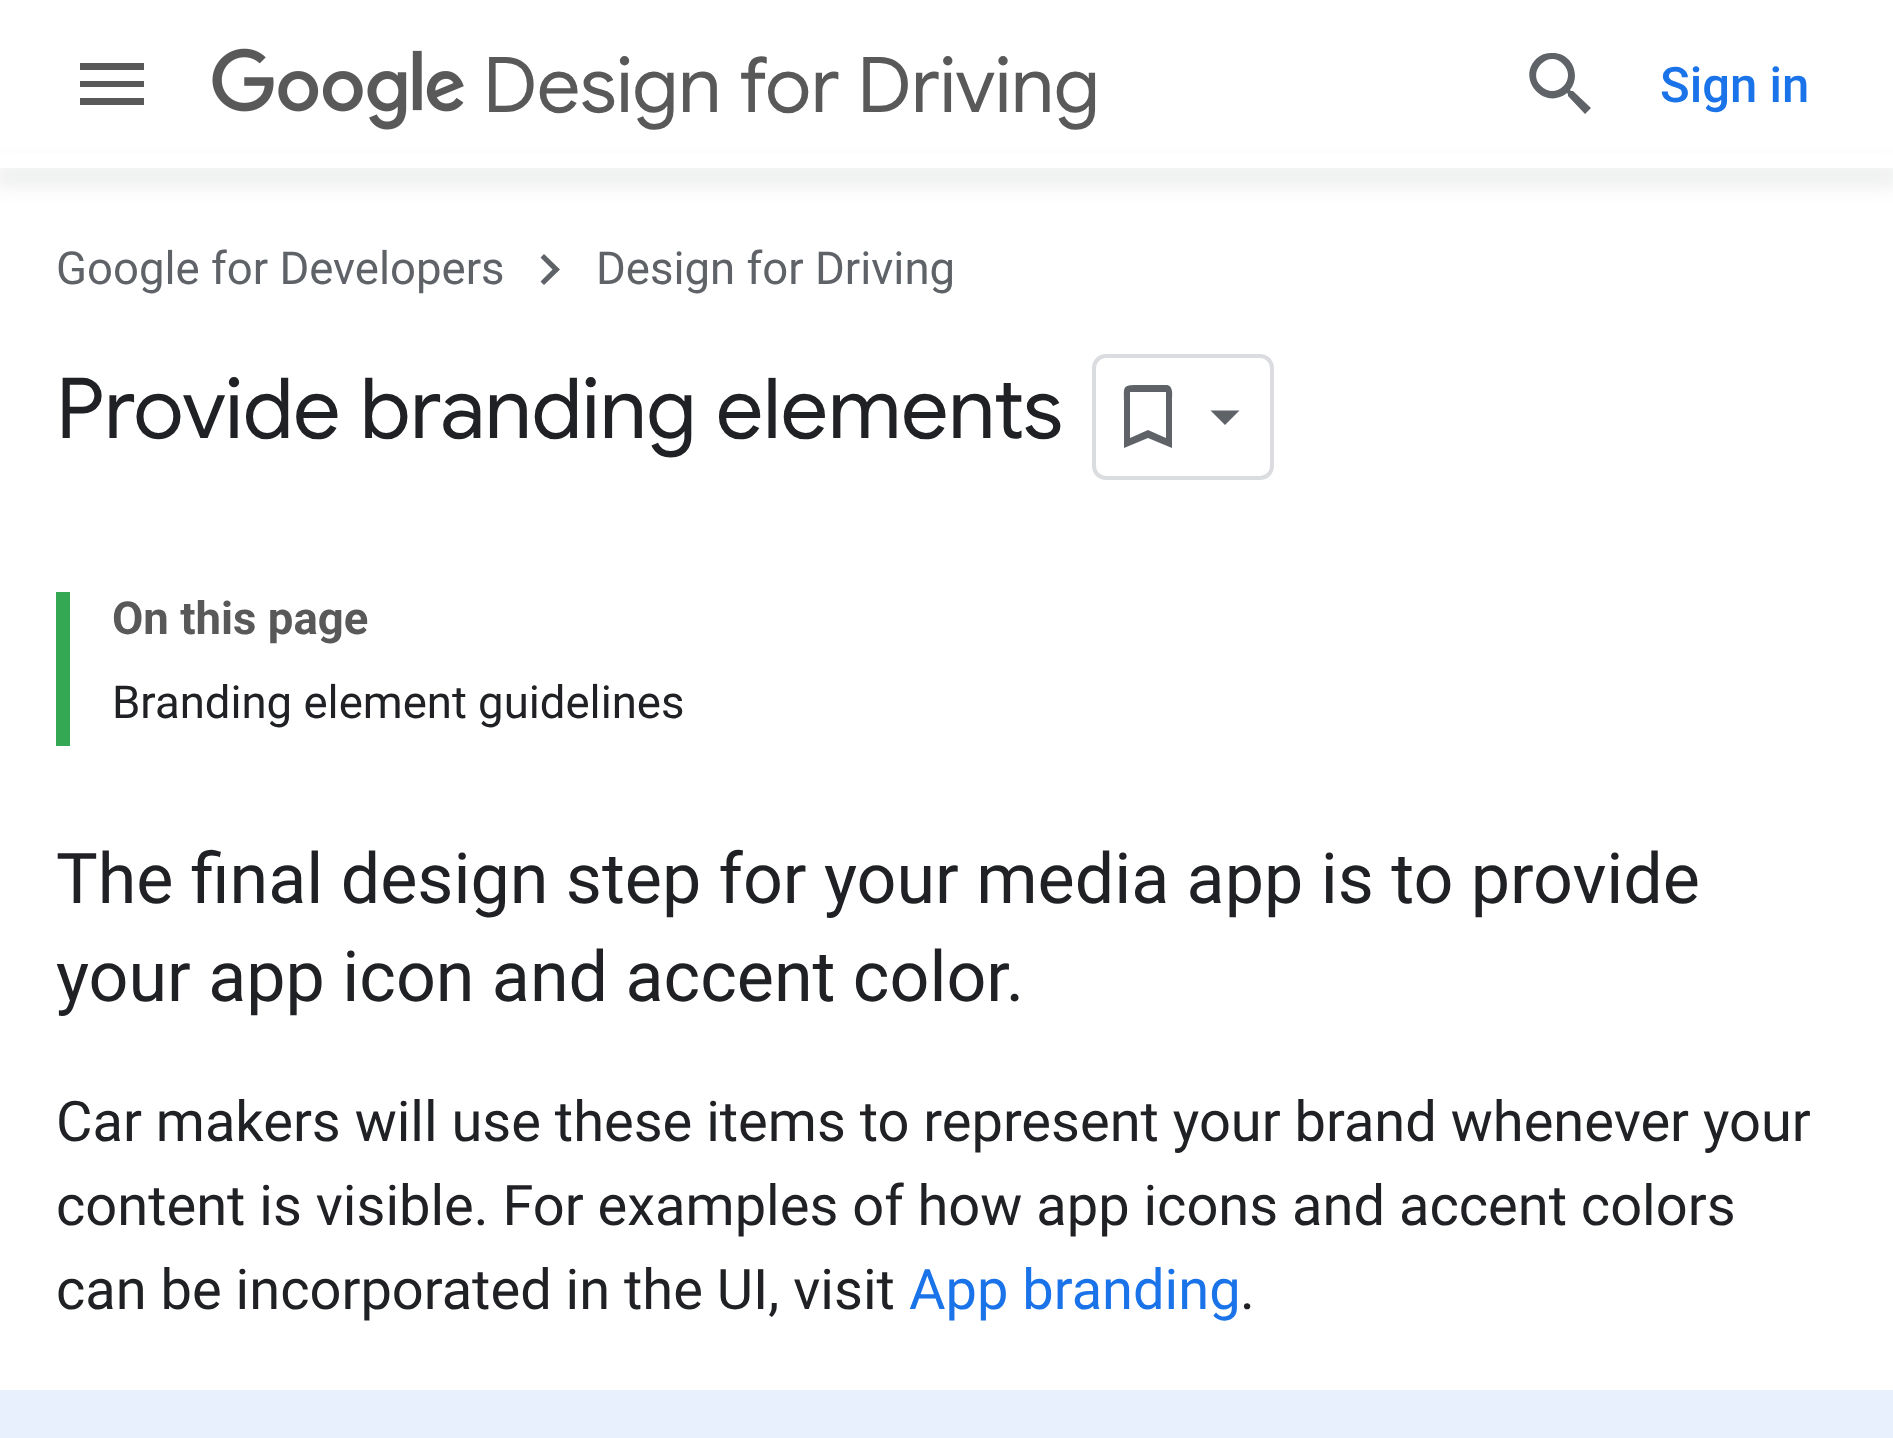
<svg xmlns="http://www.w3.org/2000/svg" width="1893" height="1438">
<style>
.a{font:77px Google Sans;fill:#595959}
.b{font:500 49px Roboto;fill:#1a73e8}
.c{font:45.5px Roboto;fill:#5f6368}
.d{font:84px Google Sans;fill:#202124}
.e{font:bold 45.5px Roboto;fill:#595959}
.f{font:45.5px Roboto;fill:#202124}
.g{font:70px Roboto;fill:#202124}
.h{font:56px Roboto;fill:#202124}
.i{font:56px Roboto;fill:#1a73e8}
</style>
<rect width="100%" height="100%" fill="#fff"/>
<path fill="#3c404326" filter="blur(10.5px)" d="M-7 168h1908v14H-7z"/>
<path fill="#fff" d="M0 154h1893v14H0z"/>
<path fill="#595959" d="M80 63h64v7h-64zm0 24v-6h64v6zm0 18v-7h64v7z"/>
<image href="1.png" x="212" y="48" width="252" height="82"/>
<path fill="#5f6368" d="M1541 86c15 15 37-7 22-22c-14-15-37 8-22 22zm32 5l18 17l-6 6l-17-18v-2l-1-1c-22 18-51-13-31-34c4-4 9-6 14-6c21-2 32 21 20 37l1 1z"/>
<path fill="#5f6368" d="M544 254l16 15.5l-16 15.5l-3.5-3.5l12-12l-12-12z"/>
<rect fill="none" stroke="#dadce0" stroke-width="4" x="1094" y="356" width="178" height="122" rx="12"/>
<path fill="#5f6368" d="M1166 438v-46h-36v46l18-8zm0-53c8 0 6 11 6 16v47l-24-10l-24 10v-47c0-13-2-16 12-16z"/>
<path fill="#5f6368" d="M1210.5 410.5h29l-14.5 14.5z"/>
<path fill="#34a853" d="M56 592h14v154H56z"/>
<path fill="#e8f0fe" d="M0 1390h1893v48H0z"/>
<text class="a" x="483" y="112">Design for Driving</text>
<text class="b" x="1660" y="102">Sign in</text>
<text class="c" x="56" y="284">Google for Developers</text>
<text class="c" x="596" y="284">Design for Driving</text>
<text class="d" x="56" y="438">Provide branding elements</text>
<text class="e" x="112" y="634">On this page</text>
<text class="f" x="112" y="718">Branding element guidelines</text>
<text class="g" x="56" y="903">The final design step for your media app is to provide</text>
<text class="g" x="56" y="1001">your app icon and accent color.</text>
<text class="h" x="56" y="1141">Car makers will use these items to represent your brand whenever your</text>
<text class="h" x="56" y="1225">content is visible. For examples of how app icons and accent colors</text>
<text class="h" x="56" y="1309">can be incorporated in the UI, visit</text>
<text class="i" x="909" y="1309">App branding</text>
<text class="h" x="1240" y="1309">.</text>
</svg>
